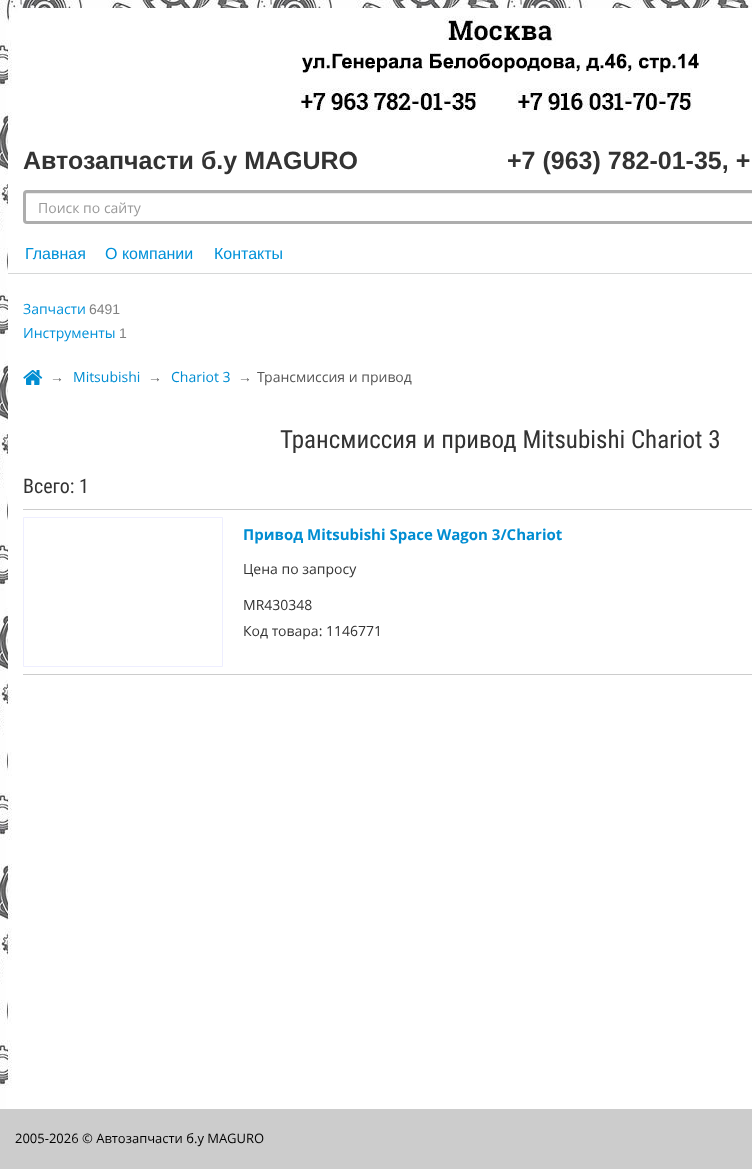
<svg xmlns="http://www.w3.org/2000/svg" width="752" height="1169">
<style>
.a{font:bold 25px Liberation Sans;fill:#333}
.b{font:14px Open Sans;fill:#999}
.c{font:16px Liberation Sans;fill:#0091d9}
.d{font:14px Open Sans;fill:#0091d9}
.e{font:14px Liberation Sans;fill:#808080}
.f{font:14px Liberation Serif;fill:#666}
.g{font:14px Open Sans;fill:#008dd2}
.h{font:14px Open Sans;fill:#555}
.i{font:25px Roboto Condensed;fill:#333}
.j{font:20px Roboto Condensed;fill:#333}
.k{font:bold 15px Open Sans;fill:#008dd2}
.l{font:14px Open Sans;fill:#333}
.m{font:13px Open Sans;fill:#000}
</style>
<rect width="100%" height="100%" fill="#fff"/>
<image href="1.png" x="0" y="0" width="752" height="1109"/>
<path fill="#fff" d="M8 125h4v565H8z"/>
<path fill="#ececec" d="M27 194h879v-1h-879c-1 0-1 1-1 2c0-1 0-1 1-1z"/>
<path fill="none" stroke="#adadad" stroke-width="3" d="M27 191.5h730.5v31h-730.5c-1.5 0-2.5-1-2.5-2.5v-26c0-1.5 1-2.5 2.5-2.5z"/>
<path fill="#d6d7d7" d="M8 273h744v1H8z"/>
<image href="2.png" x="23" y="370" width="20" height="15"/>
<path fill="#ccc" d="M23 674h729v1H23z"/>
<path fill="#ccc" d="M23 509h729v1H23z"/>
<path fill="none" stroke="#eef" d="M23.5 517.5h199v149H23.5z"/>
<path fill="#ccc" d="M0 1109h752v60H0z"/>
<text class="a" x="23" y="169">Автозапчасти б.у MAGURO</text>
<text class="a" x="507" y="169">+7 (963) 782-01-35, +</text>
<text class="b" x="38" y="213">Поиск по сайту</text>
<text class="c" x="25" y="259">Главная</text>
<text class="c" x="105" y="259">О компании</text>
<text class="c" x="214" y="259">Контакты</text>
<text class="d" x="23" y="314">Запчасти</text>
<text class="e" x="89" y="314">6491</text>
<text class="d" x="23" y="338">Инструменты</text>
<text class="e" x="119" y="338">1</text>
<text class="f" x="50" y="382">→</text>
<text class="g" x="73" y="382">Mitsubishi</text>
<text class="f" x="148" y="382">→</text>
<text class="g" x="171" y="382">Chariot 3</text>
<text class="f" x="238" y="382">→</text>
<text class="h" x="257" y="382">Трансмиссия и привод</text>
<text class="i" x="280" y="448">Трансмиссия и привод Mitsubishi Chariot 3</text>
<text class="j" x="23" y="493">Всего: 1</text>
<text class="k" x="243" y="540">Привод Mitsubishi Space Wagon 3/Chariot</text>
<text class="l" x="243" y="574">Цена по запросу</text>
<text class="l" x="243" y="610">MR430348</text>
<text class="l" x="243" y="636">Код товара: 1146771</text>
<text class="m" x="15" y="1143">2005-2026 © Автозапчасти б.у MAGURO</text>
</svg>
